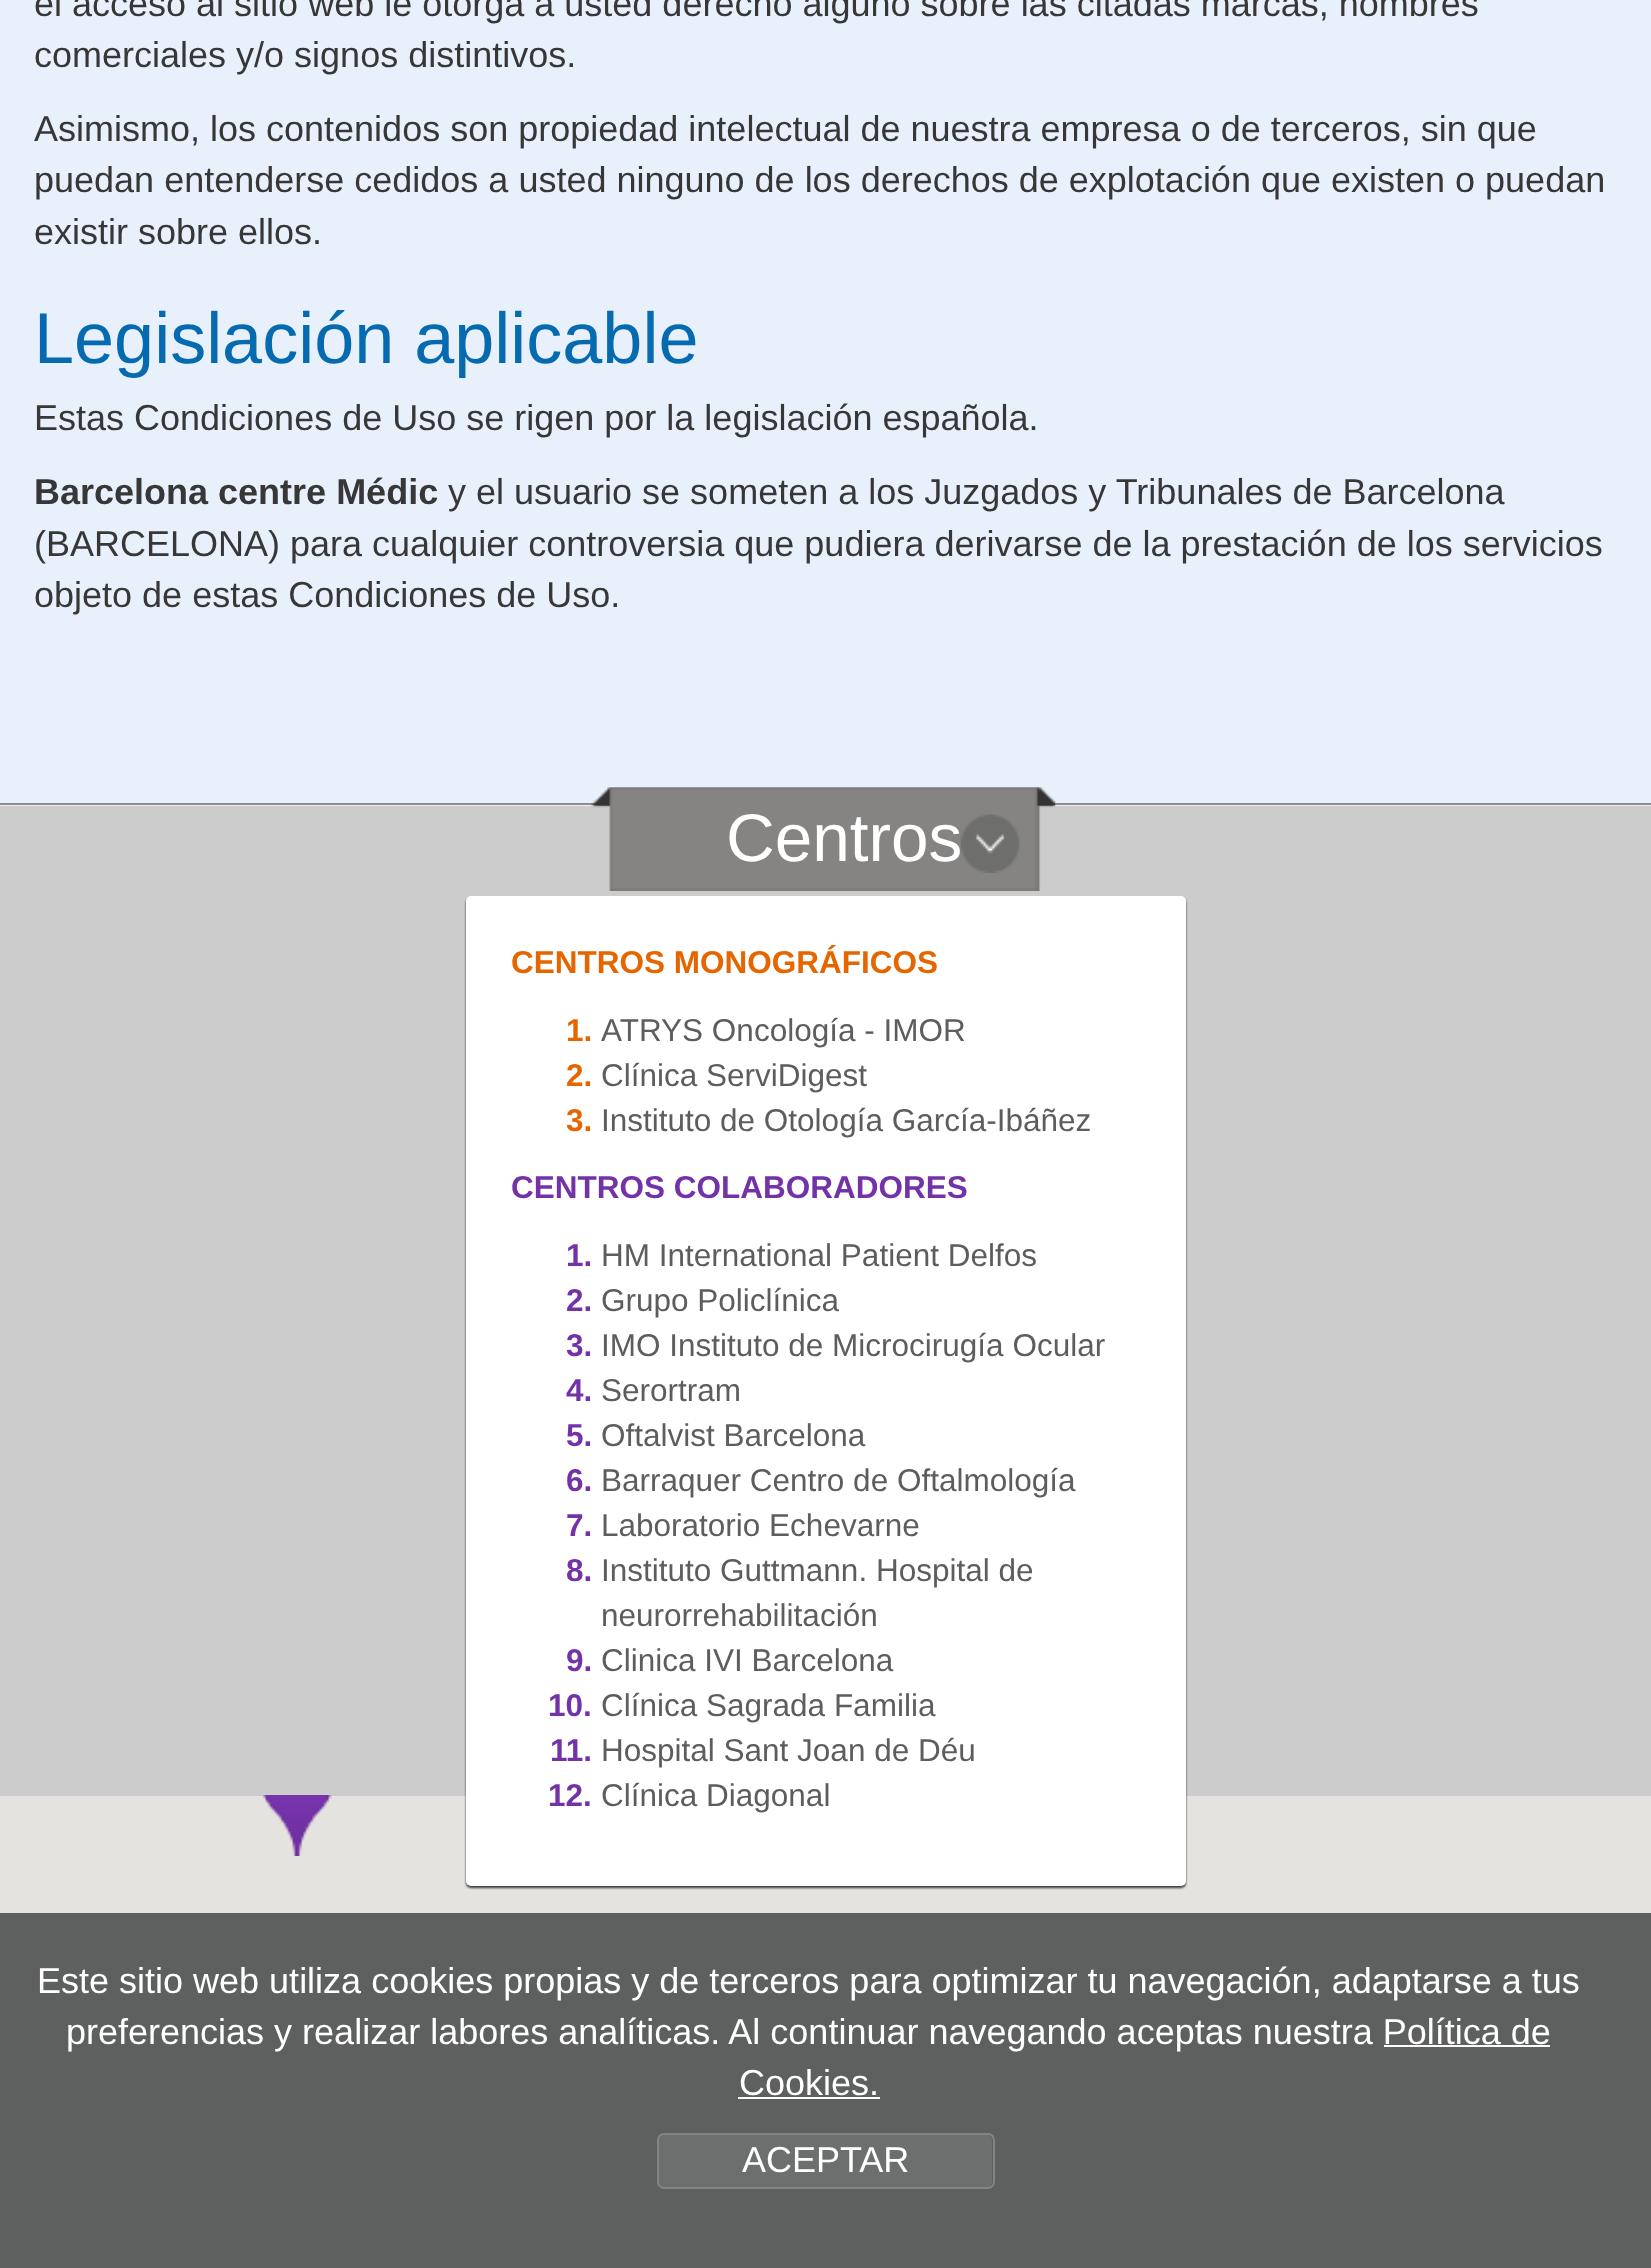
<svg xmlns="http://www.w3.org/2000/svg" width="1651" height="2268">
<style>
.a{font:36px Liberation Sans;fill:#373738}
.b{font:72px Liberation Sans;fill:#066ab0}
.c{font:bold 36px Liberation Sans;fill:#373738}
.d{font:36px Liberation Sans;fill:#fff}
.e{font:67.5px Liberation Sans;fill:#fff}
.f{font:bold 31.5px Liberation Sans;fill:#e56600}
.g{font:31.5px Liberation Sans;fill:#5d5d5d}
.h{font:bold 31.5px Liberation Sans;fill:#7332a8}
</style>
<rect width="100%" height="100%" fill="#e8f0fc"/>
<path fill="#5e5f5f" d="M0 1913h1651v355H0z"/>
<path fill="#fff" d="M1384 2045h166v2H1384z"/>
<path fill="#fff" d="M738 2097h142v2H738z"/>
<rect fill="#6d6e6e" x="659" y="2135" width="333" height="52" rx="5"/>
<rect fill="none" stroke="#828382" stroke-width="2" x="658" y="2134" width="336" height="54" rx="6"/>
<path fill="#908e8b" d="M0 803h1651v2H0z"/>
<path fill="#ccc" d="M0 806h1651v990H0z"/>
<image href="1.png" x="593" y="787" width="463" height="104"/>
<image href="2.png" x="591" y="787" width="462" height="104"/>
<image href="3.png" x="960" y="814" width="60" height="59"/>
<path fill="#e5e3df" d="M0 1796h1651v117H0z"/>
<rect fill="#000000bf" filter="blur(1px)" x="466" y="898" width="720" height="990" rx="5"/>
<rect fill="#fff" x="466" y="896" width="720" height="990" rx="5"/>
<image href="4.png" x="262" y="1795" width="70" height="61"/>
<text class="a" x="34" y="16">el acceso al sitio web le otorga a usted derecho alguno sobre las citadas marcas, nombres</text>
<text class="a" x="34" y="67">comerciales y/o signos distintivos.</text>
<text class="a" x="34" y="141">Asimismo, los contenidos son propiedad intelectual de nuestra empresa o de terceros, sin que</text>
<text class="a" x="34" y="192">puedan entenderse cedidos a usted ninguno de los derechos de explotación que existen o puedan</text>
<text class="a" x="34" y="244">existir sobre ellos.</text>
<text class="b" x="34" y="363">Legislación aplicable</text>
<text class="a" x="34" y="430">Estas Condiciones de Uso se rigen por la legislación española.</text>
<text class="c" x="34" y="504">Barcelona centre Médic</text>
<text class="a" x="448" y="504">y el usuario se someten a los Juzgados y Tribunales de Barcelona</text>
<text class="a" x="34" y="556">(BARCELONA) para cualquier controversia que pudiera derivarse de la prestación de los servicios</text>
<text class="a" x="34" y="607">objeto de estas Condiciones de Uso.</text>
<text class="d" x="37" y="1993">Este sitio web utiliza cookies propias y de terceros para optimizar tu navegación, adaptarse a tus</text>
<text class="d" x="66" y="2044">preferencias y realizar labores analíticas. Al continuar navegando aceptas nuestra Política de</text>
<text class="d" x="739" y="2095">Cookies.</text>
<text class="d" x="742" y="2172">ACEPTAR</text>
<text class="e" x="726" y="861">Centros</text>
<text class="f" x="511" y="973">CENTROS MONOGRÁFICOS</text>
<text class="f" x="566" y="1041">1.</text>
<text class="g" x="601" y="1041">ATRYS Oncología - IMOR</text>
<text class="f" x="566" y="1086">2.</text>
<text class="g" x="601" y="1086">Clínica ServiDigest</text>
<text class="f" x="566" y="1131">3.</text>
<text class="g" x="601" y="1131">Instituto de Otología García-Ibáñez</text>
<text class="h" x="511" y="1198">CENTROS COLABORADORES</text>
<text class="h" x="566" y="1266">1.</text>
<text class="g" x="601" y="1266">HM International Patient Delfos</text>
<text class="h" x="566" y="1311">2.</text>
<text class="g" x="601" y="1311">Grupo Policlínica</text>
<text class="h" x="566" y="1356">3.</text>
<text class="g" x="601" y="1356">IMO Instituto de Microcirugía Ocular</text>
<text class="h" x="566" y="1401">4.</text>
<text class="g" x="601" y="1401">Serortram</text>
<text class="h" x="566" y="1446">5.</text>
<text class="g" x="601" y="1446">Oftalvist Barcelona</text>
<text class="h" x="566" y="1491">6.</text>
<text class="g" x="601" y="1491">Barraquer Centro de Oftalmología</text>
<text class="h" x="566" y="1536">7.</text>
<text class="g" x="601" y="1536">Laboratorio Echevarne</text>
<text class="h" x="566" y="1581">8.</text>
<text class="g" x="601" y="1581">Instituto Guttmann. Hospital de</text>
<text class="g" x="601" y="1626">neurorrehabilitación</text>
<text class="h" x="566" y="1671">9.</text>
<text class="g" x="601" y="1671">Clinica IVI Barcelona</text>
<text class="h" x="548" y="1716">10.</text>
<text class="g" x="601" y="1716">Clínica Sagrada Familia</text>
<text class="h" x="550" y="1761">11.</text>
<text class="g" x="601" y="1761">Hospital Sant Joan de Déu</text>
<text class="h" x="548" y="1806">12.</text>
<text class="g" x="601" y="1806">Clínica Diagonal</text>
</svg>
